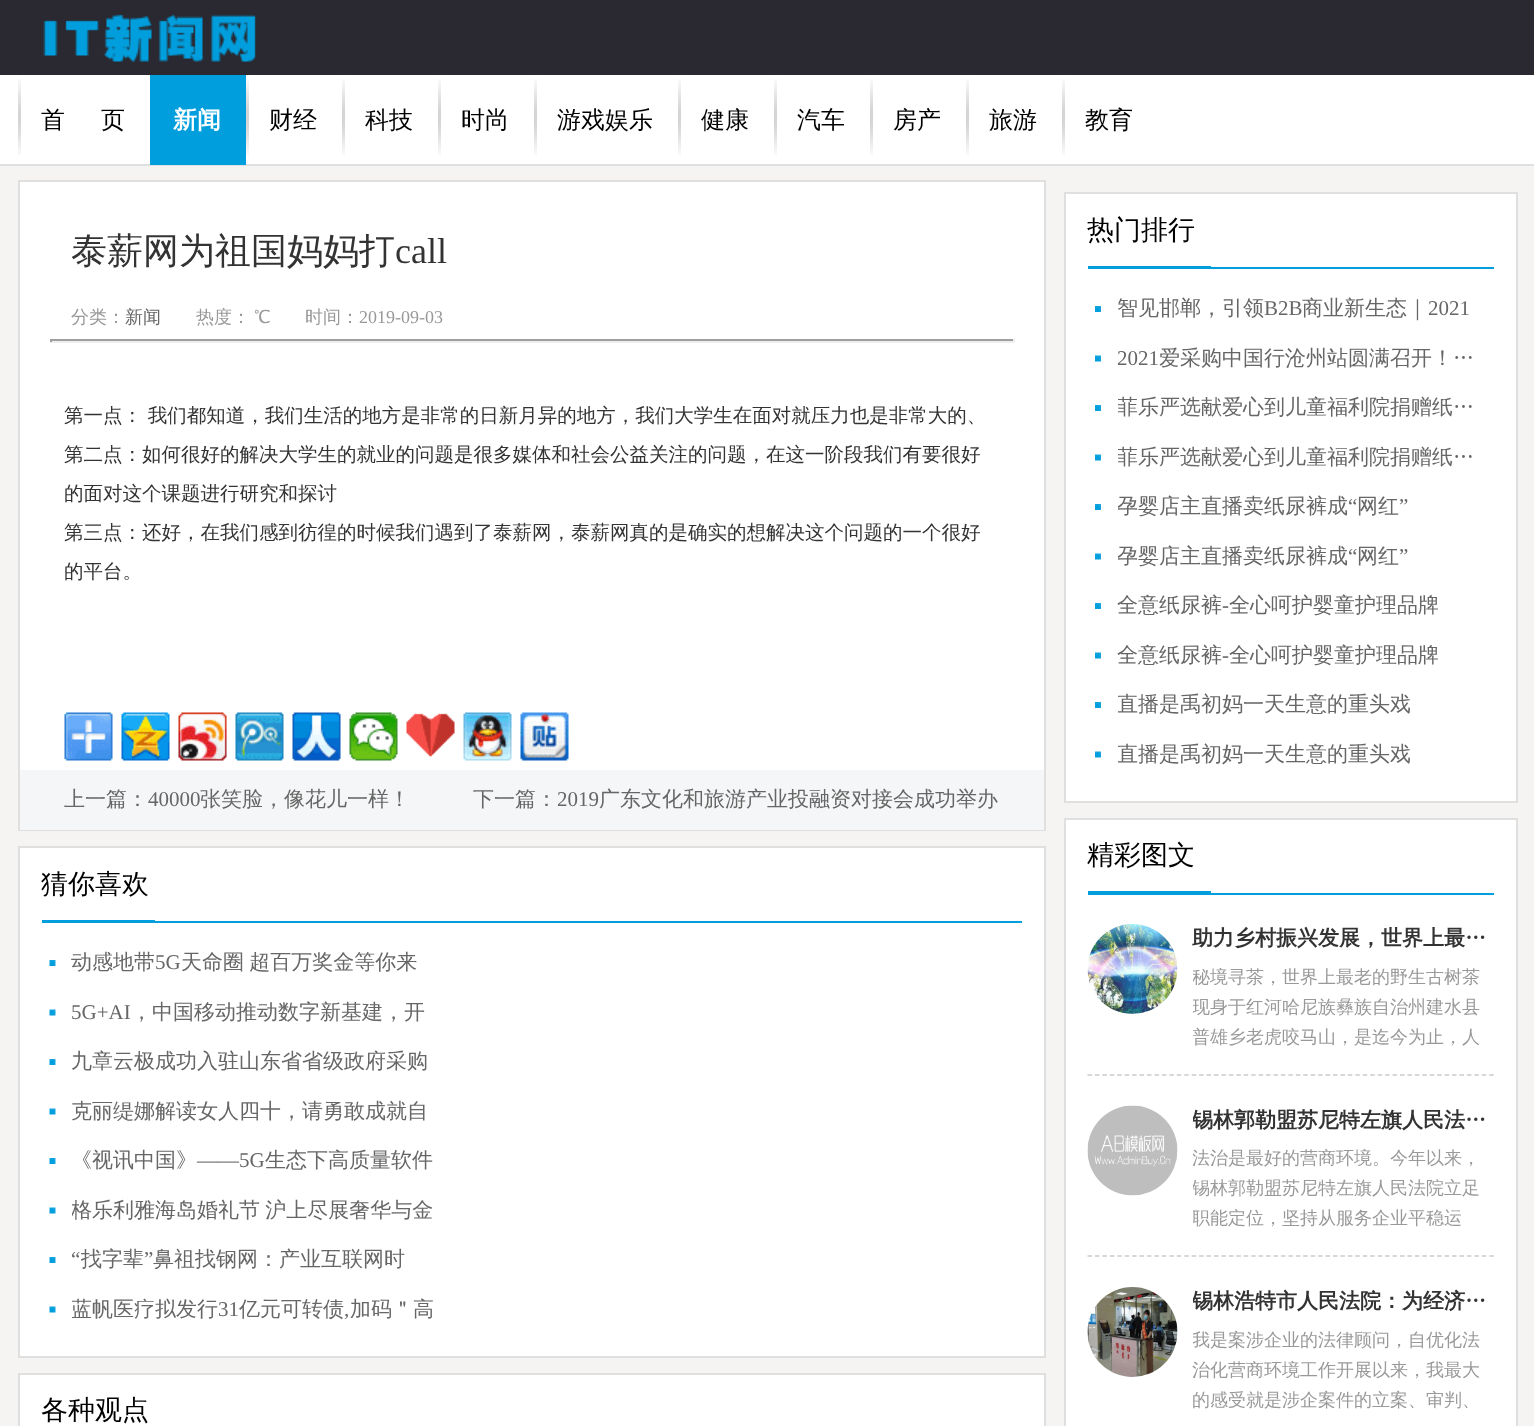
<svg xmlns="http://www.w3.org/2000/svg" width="1534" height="1426">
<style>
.a{font:500 24px WenQuanYi Zen Hei;fill:#000}
.b{font:bold 24px WenQuanYi Zen Hei;fill:#fff}
.c{font:500 36px WenQuanYi Zen Hei;fill:#333}
.d{font:36px Liberation Serif;fill:#333}
.e{font:500 18px WenQuanYi Zen Hei;fill:#999}
.f{font:500 18px WenQuanYi Zen Hei;fill:#666}
.g{font:18px Liberation Serif;fill:#999}
.h{font:500 19.5px WenQuanYi Zen Hei;fill:#333}
.i{font:500 21px WenQuanYi Zen Hei;fill:#666}
.j{font:21px Liberation Serif;fill:#666}
.k{font:500 27px WenQuanYi Zen Hei;fill:#000}
.l{font:bold 21px WenQuanYi Zen Hei;fill:#333}
</style>
<defs>
<clipPath id="clip1"><path d="M1118 383h369v49H1118z"/></clipPath>
<clipPath id="clip2"><path d="M1118 432h369v50H1118z"/></clipPath>
<clipPath id="clip3"><path d="M1118 482h369v49H1118z"/></clipPath>
<clipPath id="clip4"><path d="M1118 531h369v50H1118z"/></clipPath>
<clipPath id="clip5"><path d="M1118 680h369v49H1118z"/></clipPath>
<clipPath id="clip6"><path d="M1118 729h369v50H1118z"/></clipPath>
<clipPath id="clip7"><path d="M1193 962h300v90H1193z"/></clipPath>
<clipPath id="clip8"><path d="M1193 1106h300v30H1193z"/></clipPath>
<clipPath id="clip9"><path d="M1193 1143h300v90H1193z"/></clipPath>
<clipPath id="clip10"><path d="M1193 1287h300v30H1193z"/></clipPath>
<clipPath id="clip11"><path d="M1193 1325h300v90H1193z"/></clipPath>
<clipPath id="clip12"><path d="M72 1185h369v50H72z"/></clipPath>
<clipPath id="clip13"><path d="M72 1284h369v50H72z"/></clipPath>
</defs>
<rect width="100%" height="100%" fill="#f5f4f2"/>
<path fill="#2a2931" d="M0 0h1534v75H0z"/>
<image href="1.png" x="43" y="14" width="213" height="49"/>
<path fill="#fff" d="M0 75h1534v89H0z"/>
<path fill="#e0e0e0" d="M0 164h1534v2H0z"/>
<image href="2.png" x="18" y="79" width="3" height="76"/>
<path fill="#009edd" d="M150 75h96v90H150z"/>
<image href="2.png" x="246" y="79" width="3" height="76"/>
<image href="2.png" x="342" y="79" width="3" height="76"/>
<image href="2.png" x="438" y="79" width="3" height="76"/>
<image href="2.png" x="534" y="79" width="3" height="76"/>
<image href="2.png" x="678" y="79" width="3" height="76"/>
<image href="2.png" x="774" y="79" width="3" height="76"/>
<image href="2.png" x="870" y="79" width="3" height="76"/>
<image href="2.png" x="966" y="79" width="3" height="76"/>
<image href="2.png" x="1062" y="79" width="3" height="76"/>
<path fill="#fff" d="M20 182h1024v588H20z"/>
<path fill="none" stroke="#dfdfdf" stroke-width="2" d="M19 181h1026v649H19z"/>
<path fill="#9f9f9f" d="M50 339h964v2H50z"/>
<path fill="#eee" d="M1013 339h2v3H1013z"/>
<path fill="#eee" d="M50 341h964v2H50z"/>
<path fill="#9f9f9f" d="M50 339h2v3H50z"/>
<image href="3.png" x="64" y="712" width="49" height="49"/>
<image href="4.png" x="121" y="712" width="49" height="49"/>
<image href="5.png" x="178" y="712" width="49" height="49"/>
<image href="6.png" x="235" y="712" width="49" height="49"/>
<image href="7.png" x="292" y="712" width="49" height="49"/>
<image href="8.png" x="349" y="712" width="49" height="49"/>
<image href="9.png" x="406" y="713" width="49" height="44"/>
<image href="10.png" x="463" y="712" width="49" height="49"/>
<image href="11.png" x="520" y="712" width="49" height="49"/>
<path fill="#f5f6f7" d="M20 770h1024v60H20z"/>
<path fill="#fff" stroke="#dfdfdf" stroke-width="2" d="M1065 193h452v609H1065z"/>
<path fill="#009edd" d="M1088 267h406v2H1088z"/>
<path fill="#009edd" d="M1088 266h123v1H1088z"/>
<image href="12.png" x="1095" y="306" width="6" height="6"/>
<image href="13.png" x="1095" y="355" width="6" height="7"/>
<image href="12.png" x="1095" y="405" width="6" height="6"/>
<image href="13.png" x="1095" y="454" width="6" height="7"/>
<image href="12.png" x="1095" y="504" width="6" height="6"/>
<image href="13.png" x="1095" y="553" width="6" height="7"/>
<image href="12.png" x="1095" y="603" width="6" height="6"/>
<image href="13.png" x="1095" y="652" width="6" height="7"/>
<image href="12.png" x="1095" y="702" width="6" height="6"/>
<image href="13.png" x="1095" y="751" width="6" height="7"/>
<path fill="#fff" stroke="#dfdfdf" stroke-width="2" d="M1065 819h452v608H1065z"/>
<path fill="#009edd" d="M1088 893h406v2H1088z"/>
<path fill="#009edd" d="M1088 891h123v2H1088z"/>
<path fill="none" stroke="#ccc" stroke-width="1.5" stroke-dasharray="4.5 2.94" d="M1087.5 1075h406.5"/>
<image href="14.png" x="1087" y="924" width="91" height="90"/>
<path fill="none" stroke="#ccc" stroke-width="1.5" stroke-dasharray="4.5 2.94" d="M1087.5 1256h406.5"/>
<image href="15.png" x="1087" y="1105" width="91" height="91"/>
<image href="16.png" x="1087" y="1287" width="91" height="90"/>
<path fill="#fff" stroke="#dfdfdf" stroke-width="2" d="M19 847h1026v510H19z"/>
<path fill="#009edd" d="M42 921h980v2H42z"/>
<path fill="#009edd" d="M42 920h113v1H42z"/>
<image href="17.png" x="49" y="960" width="7" height="6"/>
<image href="18.png" x="49" y="1009" width="7" height="7"/>
<image href="17.png" x="49" y="1059" width="7" height="6"/>
<image href="18.png" x="49" y="1108" width="7" height="7"/>
<image href="17.png" x="49" y="1158" width="7" height="6"/>
<image href="18.png" x="49" y="1207" width="7" height="7"/>
<image href="17.png" x="49" y="1257" width="7" height="6"/>
<image href="18.png" x="49" y="1306" width="7" height="7"/>
<path fill="#fff" stroke="#dfdfdf" stroke-width="2" d="M19 1374h1026v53H19z"/>
<text class="a" x="41" y="128">首</text>
<text class="a" x="101" y="128">页</text>
<text class="b" x="173" y="128">新闻</text>
<text class="a" x="269" y="128">财经</text>
<text class="a" x="365" y="128">科技</text>
<text class="a" x="461" y="128">时尚</text>
<text class="a" x="557" y="128">游戏娱乐</text>
<text class="a" x="701" y="128">健康</text>
<text class="a" x="797" y="128">汽车</text>
<text class="a" x="893" y="128">房产</text>
<text class="a" x="989" y="128">旅游</text>
<text class="a" x="1085" y="128">教育</text>
<text class="c" x="71" y="263">泰薪网为祖国妈妈打</text>
<text class="d" x="395" y="263">call</text>
<text class="e" x="71" y="323">分类：</text>
<text class="f" x="125" y="323">新闻</text>
<text class="e" x="196" y="323">热度：</text>
<text class="e" x="254" y="323">℃</text>
<text class="e" x="305" y="323">时间：</text>
<text class="g" x="359" y="323">2019-09-03</text>
<text class="h" x="64" y="422">第一点： 我们都知道，我们生活的地方是非常的日新月异的地方，我们大学生在面对就压力也是非常大的、</text>
<text class="h" x="64" y="461">第二点：如何很好的解决大学生的就业的问题是很多媒体和社会公益关注的问题，在这一阶段我们有要很好</text>
<text class="h" x="64" y="500">的面对这个课题进行研究和探讨</text>
<text class="h" x="64" y="539">第三点：还好，在我们感到彷徨的时候我们遇到了泰薪网，泰薪网真的是确实的想解决这个问题的一个很好</text>
<text class="h" x="64" y="578">的平台。</text>
<text class="i" x="64" y="806">上一篇：</text>
<text class="j" x="148" y="806">40000</text>
<text class="i" x="200" y="806">张笑脸，像花儿一样！</text>
<text class="i" x="473" y="806">下一篇：</text>
<text class="j" x="557" y="806">2019</text>
<text class="i" x="599" y="806">广东文化和旅游产业投融资对接会成功举办</text>
<text class="k" x="1087" y="239">热门排行</text>
<text class="i" x="1117" y="315">智见邯郸，引领</text>
<text class="j" x="1264" y="315">B2B</text>
<text class="i" x="1302" y="315">商业新生态｜</text>
<text class="j" x="1428" y="315">2021</text>
<text class="j" x="1117" y="365">2021</text>
<text class="i" x="1159" y="365">爱采购中国行沧州站圆满召开！…</text>
<g clip-path="url(#clip1)">
<text class="i" x="1117" y="414">菲乐严选献爱心到儿童福利院捐赠纸…</text>
</g>
<g clip-path="url(#clip2)">
<text class="i" x="1117" y="464">菲乐严选献爱心到儿童福利院捐赠纸…</text>
</g>
<g clip-path="url(#clip3)">
<text class="i" x="1117" y="513">孕婴店主直播卖纸尿裤成</text>
</g>
<text class="j" x="1348" y="513">“</text>
<text class="i" x="1357" y="513">网红</text>
<text class="j" x="1399" y="513">”</text>
<g clip-path="url(#clip4)">
<text class="i" x="1117" y="563">孕婴店主直播卖纸尿裤成</text>
</g>
<text class="j" x="1348" y="563">“</text>
<text class="i" x="1357" y="563">网红</text>
<text class="j" x="1399" y="563">”</text>
<text class="i" x="1117" y="612">全意纸尿裤</text>
<text class="j" x="1222" y="612">-</text>
<text class="i" x="1229" y="612">全心呵护婴童护理品牌</text>
<text class="i" x="1117" y="662">全意纸尿裤</text>
<text class="j" x="1222" y="662">-</text>
<text class="i" x="1229" y="662">全心呵护婴童护理品牌</text>
<g clip-path="url(#clip5)">
<text class="i" x="1117" y="711">直播是禹初妈一天生意的重头戏</text>
</g>
<g clip-path="url(#clip6)">
<text class="i" x="1117" y="761">直播是禹初妈一天生意的重头戏</text>
</g>
<text class="k" x="1087" y="864">精彩图文</text>
<text class="l" x="1192" y="945">助力乡村振兴发展，世界上最…</text>
<g clip-path="url(#clip7)">
<text class="e" x="1192" y="983">秘境寻茶，世界上最老的野生古树茶</text>
<text class="e" x="1192" y="1013">现身于红河哈尼族彝族自治州建水县</text>
<text class="e" x="1192" y="1043">普雄乡老虎咬马山，是迄今为止，人</text>
</g>
<g clip-path="url(#clip8)">
<text class="l" x="1192" y="1127">锡林郭勒盟苏尼特左旗人民法…</text>
</g>
<g clip-path="url(#clip9)">
<text class="e" x="1192" y="1164">法治是最好的营商环境。今年以来，</text>
<text class="e" x="1192" y="1194">锡林郭勒盟苏尼特左旗人民法院立足</text>
<text class="e" x="1192" y="1224">职能定位，坚持从服务企业平稳运</text>
</g>
<g clip-path="url(#clip10)">
<text class="l" x="1192" y="1308">锡林浩特市人民法院：为经济…</text>
</g>
<g clip-path="url(#clip11)">
<text class="e" x="1192" y="1346">我是案涉企业的法律顾问，自优化法</text>
</g>
<text class="e" x="1192" y="1376">治化营商环境工作开展以来，我最大</text>
<text class="e" x="1192" y="1406">的感受就是涉企案件的立案、审判、</text>
<text class="k" x="41" y="893">猜你喜欢</text>
<text class="i" x="71" y="969">动感地带</text>
<text class="j" x="155" y="969">5G</text>
<text class="i" x="181" y="969" word-spacing="-1">天命圈 超百万奖金等你来</text>
<text class="j" x="71" y="1019">5G+AI</text>
<text class="i" x="131" y="1019">，中国移动推动数字新基建，开</text>
<text class="i" x="71" y="1068">九章云极成功入驻山东省省级政府采购</text>
<text class="i" x="71" y="1118">克丽缇娜解读女人四十，请勇敢成就自</text>
<text class="i" x="71" y="1167">《视讯中国》</text>
<text class="j" x="197" y="1167">——5G</text>
<text class="i" x="265" y="1167">生态下高质量软件</text>
<g clip-path="url(#clip12)">
<text class="i" x="71" y="1217" word-spacing="-1">格乐利雅海岛婚礼节 沪上尽展奢华与金</text>
</g>
<text class="j" x="71" y="1266">“</text>
<text class="i" x="81" y="1266">找字辈</text>
<text class="j" x="144" y="1266">”</text>
<text class="i" x="153" y="1266">鼻祖找钢网：产业互联网时</text>
<g clip-path="url(#clip13)">
<text class="i" x="71" y="1316">蓝帆医疗拟发行</text>
</g>
<text class="j" x="218" y="1316">31</text>
<text class="i" x="239" y="1316">亿元可转债</text>
<text class="j" x="344" y="1316">,</text>
<text class="i" x="350" y="1316">加码＂高</text>
<text class="k" x="41" y="1419">各种观点</text>
</svg>
